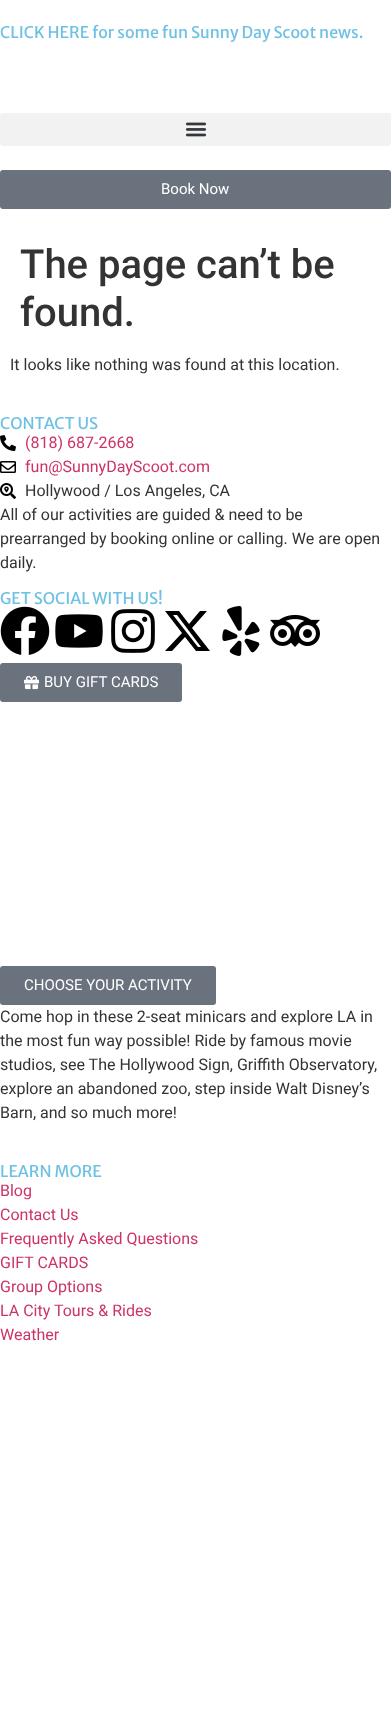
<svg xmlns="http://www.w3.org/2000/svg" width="391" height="1726">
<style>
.a{font:16px Merriweather Sans;fill:#6ec1e4}
.b{font:15px Roboto;fill:#fff}
.c{font:500 40px Roboto;fill:#333}
.d{font:16px Roboto;fill:#333}
.e{font:16px Roboto;fill:#c36}
</style>
<rect width="100%" height="100%" fill="#fff"/>
<rect fill="#f2f2f2" y="113" width="391" height="33" rx="3"/>
<image href="1.png" x="185" y="122" width="22" height="15"/>
<rect fill="#69727d" y="170" width="391" height="39" rx="3"/>
<image href="2.png" x="0" y="435" width="16" height="16"/>
<image href="3.png" x="0" y="461" width="16" height="12"/>
<image href="4.png" x="0" y="483" width="16" height="16"/>
<image href="5.png" x="0" y="606" width="50" height="49"/>
<image href="6.png" x="55" y="614" width="48" height="34"/>
<image href="7.png" x="111" y="609" width="44" height="44"/>
<path fill="#000" d="M200 611h7l-15 17l18 23h-14l-11-14l-13 14h-7l17-18l-17-22h14l10 13zm-2 36h3l-24-32h-4z"/>
<image href="8.png" x="222" y="606" width="38" height="50"/>
<image href="9.png" x="270" y="614" width="50" height="33"/>
<rect fill="#69727d" y="663" width="182" height="39" rx="3"/>
<image href="10.png" x="24" y="676" width="15" height="14"/>
<rect fill="#69727d" y="966" width="216" height="39" rx="3"/>
<text class="a" x="0" y="38">CLICK HERE for some fun Sunny Day Scoot news.</text>
<text class="b" x="161" y="194">Book Now</text>
<text class="c" x="20" y="278">The page can’t be</text>
<text class="c" x="20" y="326">found.</text>
<text class="d" x="10" y="370">It looks like nothing was found at this location.</text>
<text class="a" x="0" y="429">CONTACT US</text>
<text class="e" x="25" y="448">(818) 687-2668</text>
<text class="e" x="25" y="472">fun@SunnyDayScoot.com</text>
<text class="d" x="25" y="496">Hollywood / Los Angeles, CA</text>
<text class="d" x="0" y="520">All of our activities are guided &amp; need to be</text>
<text class="d" x="0" y="544">prearranged by booking online or calling. We are open</text>
<text class="d" x="0" y="568">daily.</text>
<text class="a" x="0" y="604">GET SOCIAL WITH US!</text>
<text class="b" x="44" y="687">BUY GIFT CARDS</text>
<text class="b" x="24" y="990">CHOOSE YOUR ACTIVITY</text>
<text class="d" x="0" y="1022">Come hop in these 2-seat minicars and explore LA in</text>
<text class="d" x="0" y="1046">the most fun way possible! Ride by famous movie</text>
<text class="d" x="0" y="1070">studios, see The Hollywood Sign, Griffith Observatory,</text>
<text class="d" x="0" y="1094">explore an abandoned zoo, step inside Walt Disney’s</text>
<text class="d" x="0" y="1118">Barn, and so much more!</text>
<text class="a" x="0" y="1177">LEARN MORE</text>
<text class="e" x="0" y="1196">Blog</text>
<text class="e" x="0" y="1220">Contact Us</text>
<text class="e" x="0" y="1244">Frequently Asked Questions</text>
<text class="e" x="0" y="1268">GIFT CARDS</text>
<text class="e" x="0" y="1292">Group Options</text>
<text class="e" x="0" y="1316">LA City Tours &amp; Rides</text>
<text class="e" x="0" y="1340">Weather</text>
</svg>
